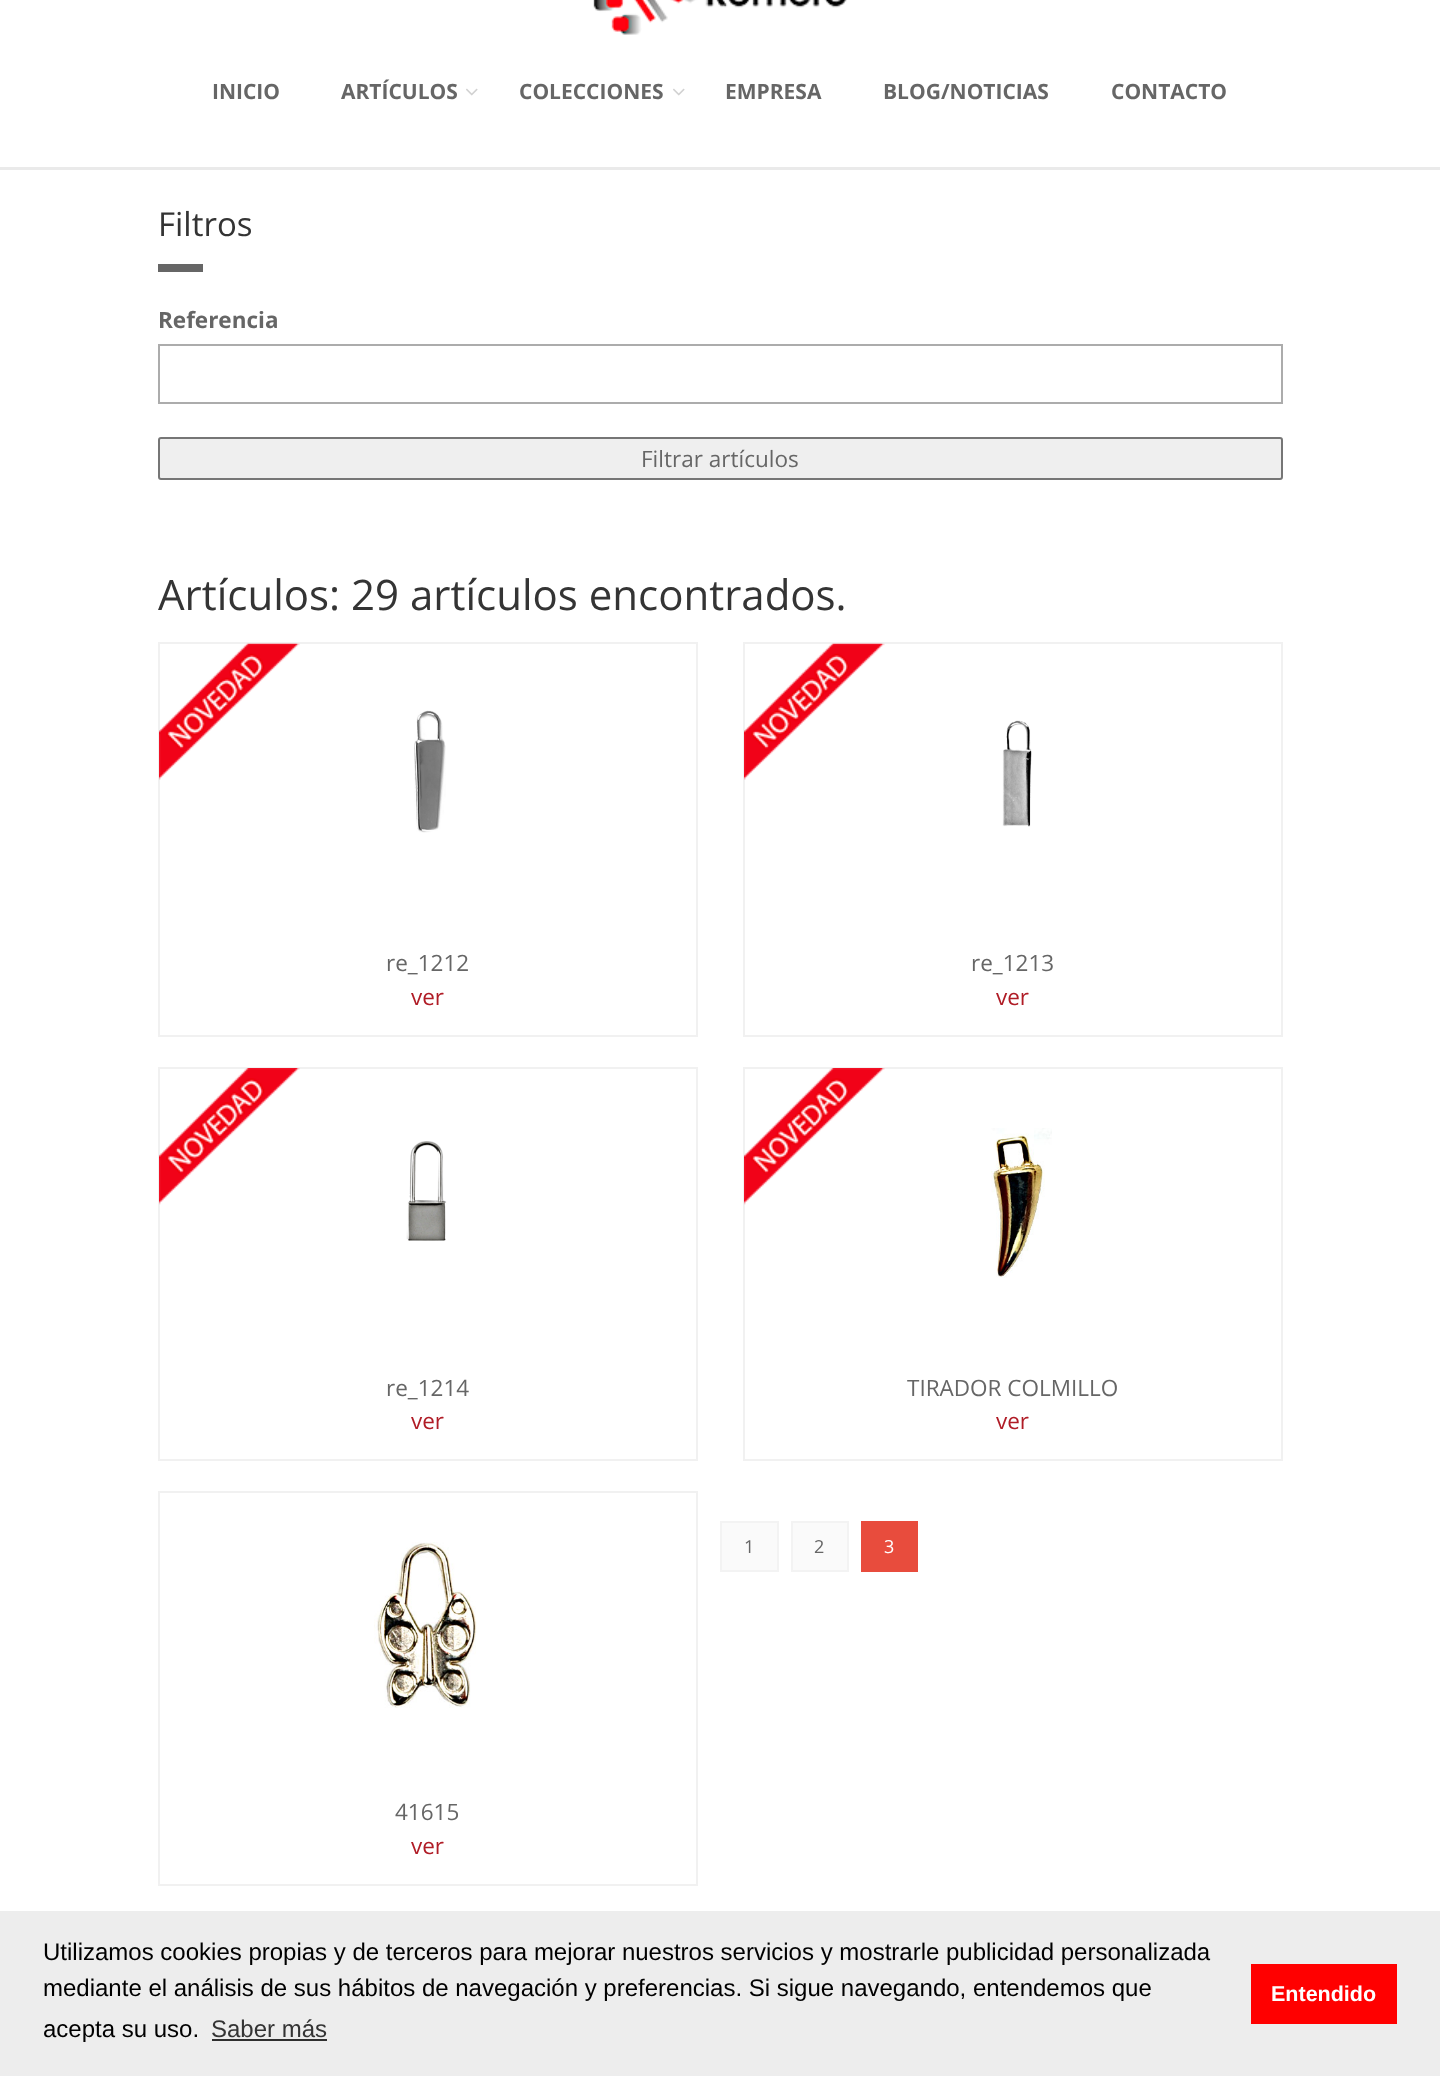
<svg xmlns="http://www.w3.org/2000/svg" width="1440" height="2076">
<style>
.a{font:bold 21px Open Sans;fill:#666}
.b{font:33px Open Sans;fill:#343434}
.c{font:bold 22.5px Open Sans;fill:#666}
.d{font:22.5px Open Sans;fill:#666}
.e{font:42px Open Sans;fill:#343434}
.f{font:22.5px Open Sans;fill:#b01c26}
.g{font:18px Open Sans;fill:#666}
.h{font:18px Open Sans;fill:#fff}
.i{font:24px Liberation Sans;fill:#000}
.j{font:24px Liberation Sans;fill:#343434}
.k{font:bold 21.5px Liberation Sans;fill:#fff}
</style>
<rect width="100%" height="100%" fill="#fff"/>
<path fill="#eaeaea" d="M0 167h1440v3H0z"/>
<image href="1.png" x="593" y="0" width="254" height="35"/>
<image href="2.png" x="466" y="88" width="12" height="8"/>
<image href="2.png" x="673" y="88" width="12" height="8"/>
<path fill="#666" d="M158 264h45v8H158z"/>
<path fill="none" stroke="#acacac" stroke-width="2" d="M159 345h1123v58H159z"/>
<rect fill="#efefef" stroke="#767676" stroke-width="2" x="159" y="438" width="1123" height="41" rx="2"/>
<path fill="none" stroke="#f1f1f1" stroke-width="2" d="M159 643h538v393H159z"/>
<image href="3.png" x="159" y="643" width="141" height="137"/>
<image href="4.png" x="414" y="710" width="32" height="123"/>
<path fill="none" stroke="#f1f1f1" stroke-width="2" d="M744 643h538v393H744z"/>
<image href="5.png" x="744" y="643" width="141" height="137"/>
<image href="6.png" x="1002" y="720" width="30" height="107"/>
<path fill="none" stroke="#f1f1f1" stroke-width="2" d="M159 1068h538v392H159z"/>
<image href="7.png" x="159" y="1068" width="141" height="137"/>
<image href="8.png" x="406" y="1141" width="41" height="100"/>
<path fill="none" stroke="#f1f1f1" stroke-width="2" d="M744 1068h538v392H744z"/>
<image href="9.png" x="744" y="1068" width="141" height="137"/>
<image href="10.png" x="991" y="1128" width="61" height="150"/>
<path fill="#fafafa" stroke="#f3f3f3" stroke-width="2" d="M721 1522h57v49H721z"/>
<path fill="#fafafa" stroke="#f3f3f3" stroke-width="2" d="M792 1522h56v49H792z"/>
<path fill="#e84c3d" d="M861 1521h57v51H861z"/>
<path fill="none" stroke="#f1f1f1" stroke-width="2" d="M159 1492h538v393H159z"/>
<image href="11.png" x="374" y="1542" width="103" height="166"/>
<path fill="#ededed" d="M0 1911h1440v165H0z"/>
<path fill="#2f2f2f" d="M212 2039h115v2H212z"/>
<path fill="#f00" d="M1251 1964h146v60H1251z"/>
<text class="a" x="212" y="99">INICIO</text>
<text class="a" x="341" y="99">ARTÍCULOS</text>
<text class="a" x="519" y="99">COLECCIONES</text>
<text class="a" x="725" y="99">EMPRESA</text>
<text class="a" x="883" y="99">BLOG/NOTICIAS</text>
<text class="a" x="1111" y="99">CONTACTO</text>
<text class="b" x="158" y="236">Filtros</text>
<text class="c" x="158" y="328">Referencia</text>
<text class="d" x="641" y="467">Filtrar artículos</text>
<text class="e" x="158" y="610">Artículos: 29 artículos encontrados.</text>
<text class="d" x="386" y="971">re_1212</text>
<text class="f" x="411" y="1005">ver</text>
<text class="d" x="971" y="971">re_1213</text>
<text class="f" x="996" y="1005">ver</text>
<text class="d" x="386" y="1396">re_1214</text>
<text class="f" x="411" y="1429">ver</text>
<text class="d" x="907" y="1396">TIRADOR COLMILLO</text>
<text class="f" x="996" y="1429">ver</text>
<text class="g" x="744" y="1553">1</text>
<text class="g" x="814" y="1553">2</text>
<text class="h" x="884" y="1553">3</text>
<text class="d" x="395" y="1820">41615</text>
<text class="f" x="411" y="1854">ver</text>
<text class="i" x="43" y="1960">Utilizamos cookies propias y de terceros para mejorar nuestros servicios y mostrarle publicidad personalizada</text>
<text class="i" x="43" y="1996">mediante el análisis de sus hábitos de navegación y preferencias. Si sigue navegando, entendemos que</text>
<text class="i" x="43" y="2037">acepta su uso.</text>
<text class="j" x="211" y="2037">Saber más</text>
<text class="k" x="1271" y="2001">Entendido</text>
</svg>
